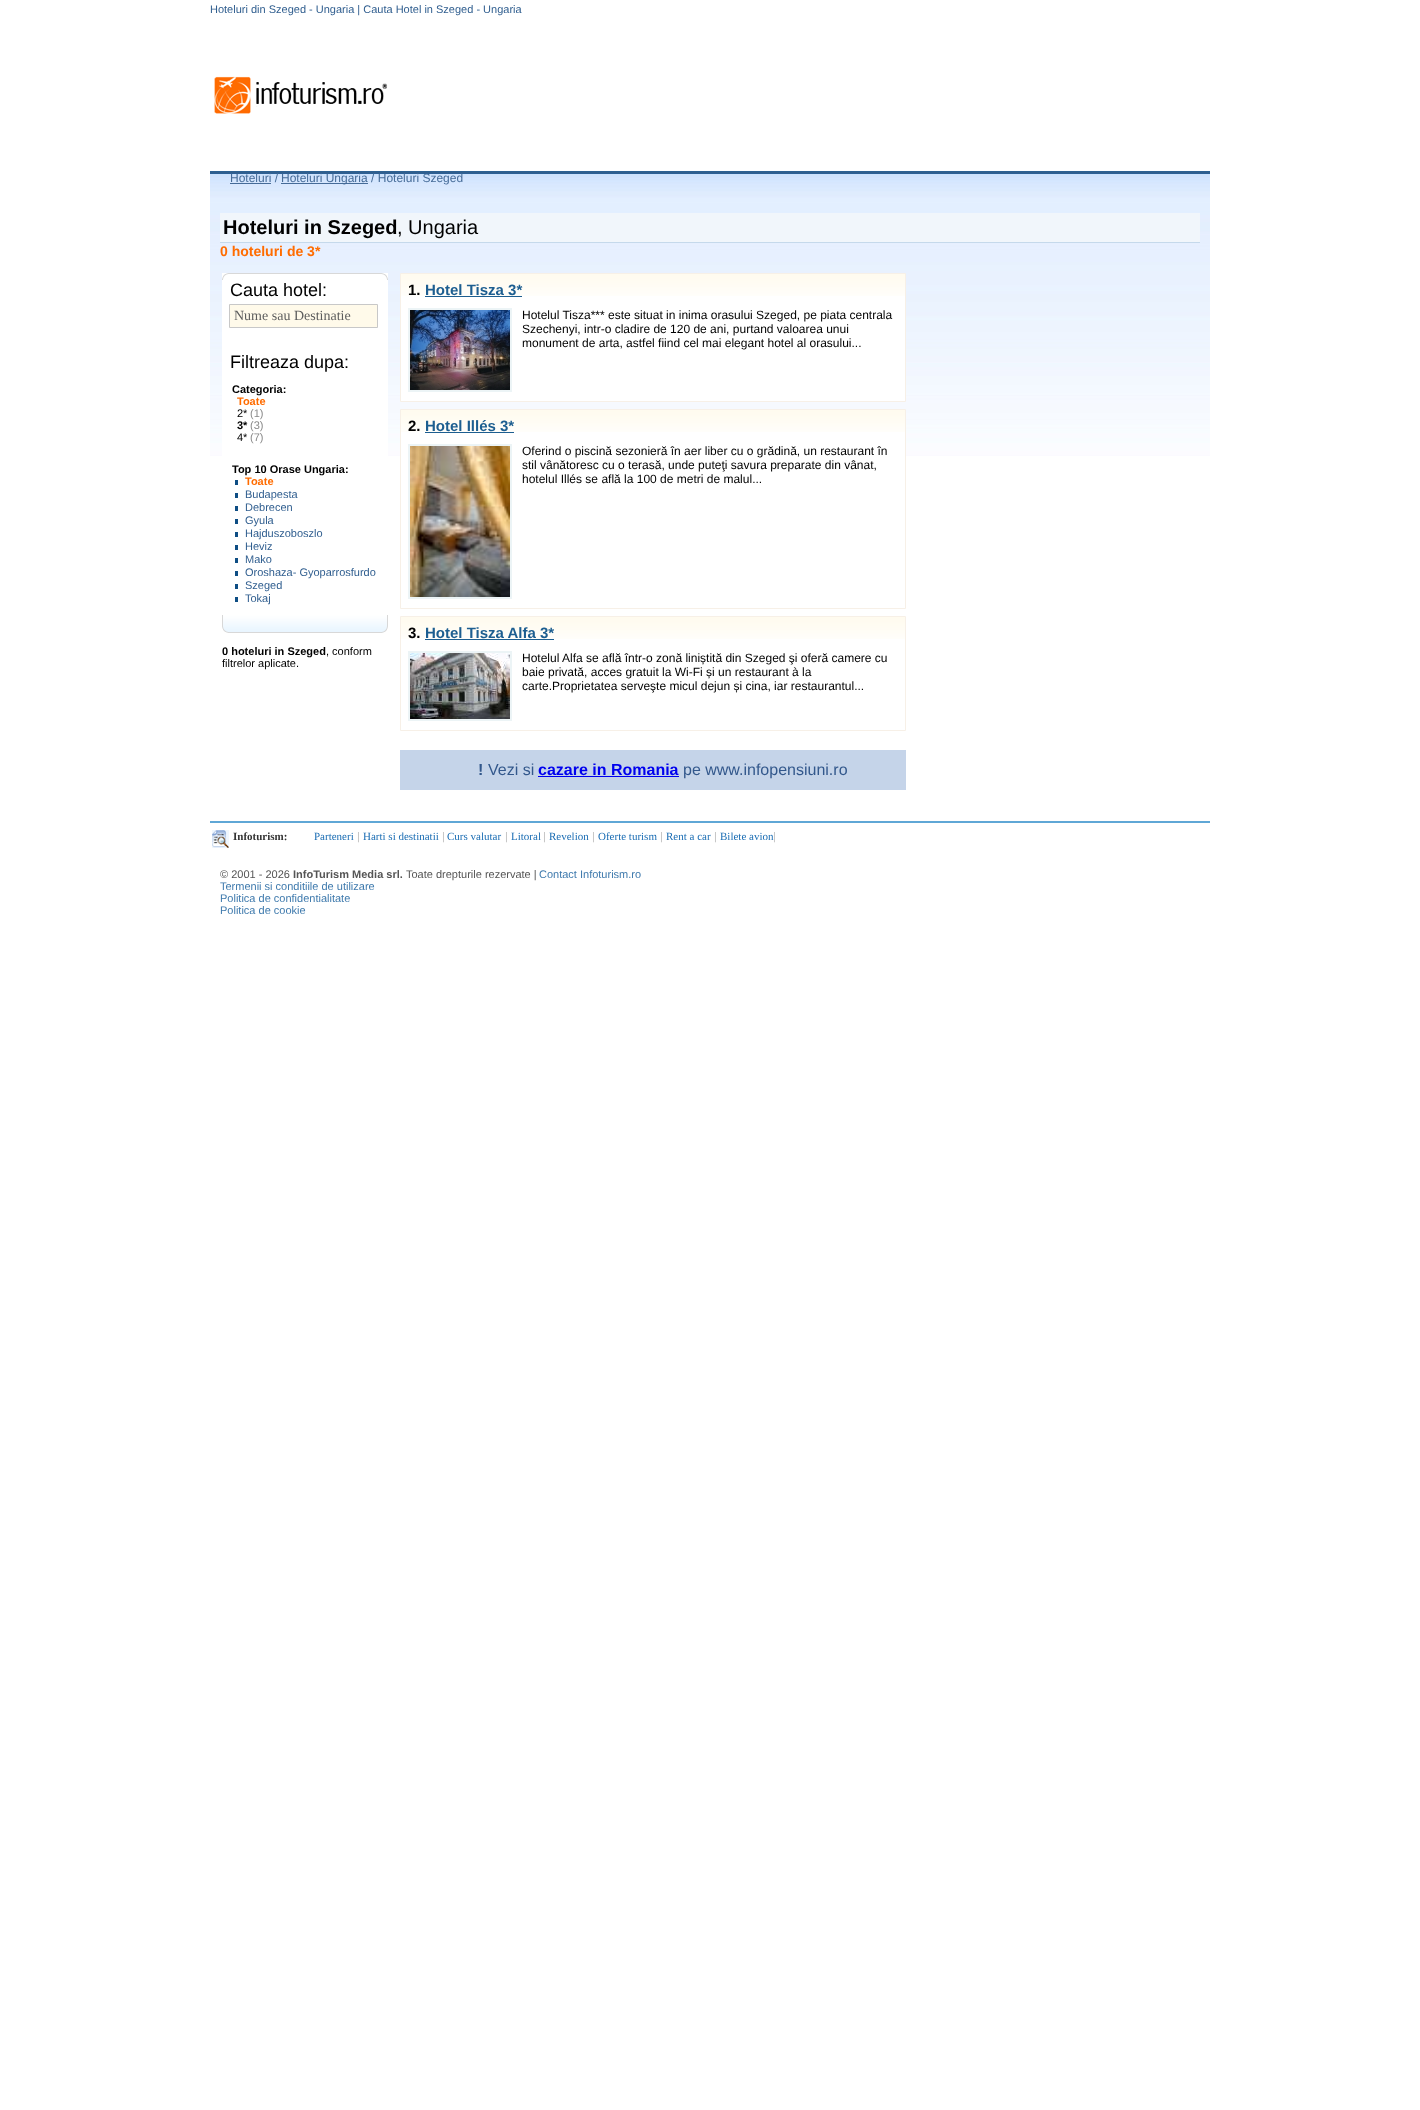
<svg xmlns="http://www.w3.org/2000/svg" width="1420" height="2110">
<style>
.a{font:11px Liberation Sans;fill:#305e8f}
.b{font:12px Liberation Sans;fill:#456b98}
.c{font:bold 20px Liberation Sans;fill:#000}
.d{font:20px Liberation Sans;fill:#000}
.e{font:bold 14px Liberation Sans;fill:#ff6c00}
.f{font:18px Liberation Sans;fill:#000}
.g{font:14px Liberation Serif;fill:#5d5d5d}
.h{font:bold 11px Liberation Sans;fill:#000}
.i{font:bold 11px Liberation Sans;fill:#ff6c00}
.j{font:11px Liberation Sans;fill:#000}
.k{font:11px Liberation Sans;fill:#898989}
.l{font:bold 15px Liberation Sans;fill:#000}
.m{font:bold 15px Liberation Sans;fill:#1d5e90}
.n{font:12px Liberation Sans;fill:#000}
.o{font:bold 16px Liberation Sans;fill:#33588c}
.p{font:16px Liberation Sans;fill:#33588c}
.q{font:bold 16px Liberation Sans;fill:#00e}
.r{font:bold 11px Liberation Serif;fill:#333}
.s{font:11px Liberation Serif;fill:#196cb3}
.t{font:11px Liberation Sans;fill:#c0c0c0}
.u{font:11px Liberation Sans;fill:#555}
.v{font:bold 11px Liberation Sans;fill:#555}
.w{font:11px Liberation Sans;fill:#3f7aad}
</style>
<rect width="100%" height="100%" fill="#fff"/>
<image href="1.png" x="214" y="76" width="174" height="38"/>
<image href="2.png" x="210" y="171" width="1000" height="285"/>
<path fill="#456b98" d="M230 183h41v1H230z"/>
<path fill="#456b98" d="M281 183h87v1H281z"/>
<path fill="#f1f6fb" d="M220 213h980v29H220z"/>
<path fill="#c5d9eb" d="M220 242h980v1H220z"/>
<image href="3.png" x="222" y="273" width="166" height="7"/>
<path fill="#fff" d="M222 280h166v176H222z"/>
<path fill="#fffaea" stroke="#c8c8c8" d="M229.5 304.5h148v23H229.5z"/>
<path fill="#0e4e84" d="M235 480h3v5H235z"/>
<path fill="#0e4e84" d="M235 493h3v5H235z"/>
<path fill="#0e4e84" d="M235 506h3v5H235z"/>
<path fill="#0e4e84" d="M235 519h3v5H235z"/>
<path fill="#0e4e84" d="M235 532h3v5H235z"/>
<path fill="#0e4e84" d="M235 545h3v5H235z"/>
<path fill="#0e4e84" d="M235 558h3v5H235z"/>
<path fill="#0e4e84" d="M235 571h3v5H235z"/>
<path fill="#0e4e84" d="M235 584h3v5H235z"/>
<path fill="#0e4e84" d="M235 597h3v5H235z"/>
<image href="4.png" x="222" y="615" width="166" height="18"/>
<path fill="#fff" d="M401 296h504v105H401z"/>
<image href="5.png" x="401" y="274" width="504" height="22"/>
<path fill="none" stroke="#f7f0e7" d="M400.5 273.5h505v128H400.5z"/>
<path fill="#1d5e90" d="M425 296h97v1H425z"/>
<path fill="none" stroke="#ecf4f6" stroke-width="2" d="M409 309h102v82H409z"/>
<image href="6.png" x="410" y="310" width="100" height="80"/>
<path fill="#fff" d="M401 432h504v24H401z"/>
<image href="5.png" x="401" y="410" width="504" height="22"/>
<path fill="none" stroke="#f7f0e7" d="M400.5 409.5h505v199H400.5z"/>
<path fill="#1d5e90" d="M425 432h89v1H425z"/>
<path fill="none" stroke="#ecf4f6" stroke-width="2" d="M409 445h102v153H409z"/>
<image href="7.png" x="410" y="446" width="100" height="151"/>
<image href="5.png" x="401" y="617" width="504" height="22"/>
<path fill="none" stroke="#f7f0e7" d="M400.5 616.5h505v114H400.5z"/>
<path fill="#1d5e90" d="M425 639h129v1H425z"/>
<path fill="none" stroke="#ecf4f6" stroke-width="2" d="M409 652h102v68H409z"/>
<image href="8.png" x="410" y="653" width="100" height="66"/>
<path fill="#c5d4e9" d="M400 750h506v40H400z"/>
<path fill="#00e" d="M538 776h141v1H538z"/>
<path fill="#5fa7d6" d="M210 821h1000v2H210z"/>
<image href="9.png" x="212" y="830" width="17" height="18"/>
<text class="a" x="210" y="13">Hoteluri din Szeged - Ungaria | Cauta Hotel in Szeged - Ungaria</text>
<text class="b" x="230" y="182">Hoteluri /</text>
<text class="b" x="281" y="182">Hoteluri Ungaria / Hoteluri Szeged</text>
<text class="c" x="223" y="234">Hoteluri in Szeged</text>
<text class="d" x="397" y="234">, Ungaria</text>
<text class="e" x="220" y="256">0 hoteluri de 3*</text>
<text class="f" x="230" y="296">Cauta hotel:</text>
<text class="g" x="234" y="320">Nume sau Destinatie</text>
<text class="f" x="230" y="368">Filtreaza dupa:</text>
<text class="h" x="232" y="393">Categoria:</text>
<text class="i" x="237" y="405">Toate</text>
<text class="j" x="237" y="417">2*</text>
<text class="k" x="250" y="417">(1)</text>
<text class="h" x="237" y="429">3*</text>
<text class="k" x="250" y="429">(3)</text>
<text class="j" x="237" y="441">4*</text>
<text class="k" x="250" y="441">(7)</text>
<text class="h" x="232" y="473">Top 10 Orase Ungaria:</text>
<text class="i" x="245" y="485">Toate</text>
<text class="a" x="245" y="498">Budapesta</text>
<text class="a" x="245" y="511">Debrecen</text>
<text class="a" x="245" y="524">Gyula</text>
<text class="a" x="245" y="537">Hajduszoboszlo</text>
<text class="a" x="245" y="550">Heviz</text>
<text class="a" x="245" y="563">Mako</text>
<text class="a" x="245" y="576">Oroshaza- Gyoparrosfurdo</text>
<text class="a" x="245" y="589">Szeged</text>
<text class="a" x="245" y="602">Tokaj</text>
<text class="h" x="222" y="655">0 hoteluri in Szeged</text>
<text class="j" x="326" y="655">, conform</text>
<text class="j" x="222" y="667">filtrelor aplicate.</text>
<text class="l" x="408" y="295">1.</text>
<text class="m" x="425" y="295">Hotel Tisza 3*</text>
<text class="n" x="522" y="319">Hotelul Tisza*** este situat in inima orasului Szeged, pe piata centrala</text>
<text class="n" x="522" y="333">Szechenyi, intr-o cladire de 120 de ani, purtand valoarea unui</text>
<text class="n" x="522" y="347">monument de arta, astfel fiind cel mai elegant hotel al orasului...</text>
<text class="l" x="408" y="431">2.</text>
<text class="m" x="425" y="431">Hotel Illés 3*</text>
<text class="n" x="522" y="455">Oferind o piscină sezonieră în aer liber cu o grădină, un restaurant în</text>
<text class="n" x="522" y="469">stil vânătoresc cu o terasă, unde puteţi savura preparate din vânat,</text>
<text class="n" x="522" y="483">hotelul Illés se află la 100 de metri de malul...</text>
<text class="l" x="408" y="638">3.</text>
<text class="m" x="425" y="638">Hotel Tisza Alfa 3*</text>
<text class="n" x="522" y="662">Hotelul Alfa se află într-o zonă liniștită din Szeged şi oferă camere cu</text>
<text class="n" x="522" y="676">baie privată, acces gratuit la Wi-Fi și un restaurant à la</text>
<text class="n" x="522" y="690">carte.Proprietatea serveşte micul dejun și cina, iar restaurantul...</text>
<text class="o" x="478" y="775">!</text>
<text class="p" x="488" y="775">Vezi si</text>
<text class="q" x="538" y="775">cazare in Romania</text>
<text class="p" x="683" y="775">pe www.infopensiuni.ro</text>
<text class="r" x="233" y="840">Infoturism:</text>
<text class="s" x="314" y="840">Parteneri</text>
<text class="t" x="357" y="840">|</text>
<text class="s" x="363" y="840">Harti si destinatii</text>
<text class="t" x="442" y="840">|</text>
<text class="s" x="447" y="840">Curs valutar</text>
<text class="t" x="505" y="840">|</text>
<text class="s" x="511" y="840">Litoral</text>
<text class="t" x="543" y="840">|</text>
<text class="s" x="549" y="840">Revelion</text>
<text class="t" x="592" y="840">|</text>
<text class="s" x="598" y="840">Oferte turism</text>
<text class="t" x="660" y="840">|</text>
<text class="s" x="666" y="840">Rent a car</text>
<text class="t" x="714" y="840">|</text>
<text class="s" x="720" y="840">Bilete avion</text>
<text class="t" x="773" y="840">|</text>
<text class="u" x="220" y="878">© 2001 - 2026</text>
<text class="v" x="293" y="878">InfoTurism Media srl.</text>
<text class="u" x="406" y="878">Toate drepturile rezervate |</text>
<text class="w" x="539" y="878">Contact Infoturism.ro</text>
<text class="w" x="220" y="890">Termenii si conditiile de utilizare</text>
<text class="w" x="220" y="902">Politica de confidentialitate</text>
<text class="w" x="220" y="914">Politica de cookie</text>
</svg>
